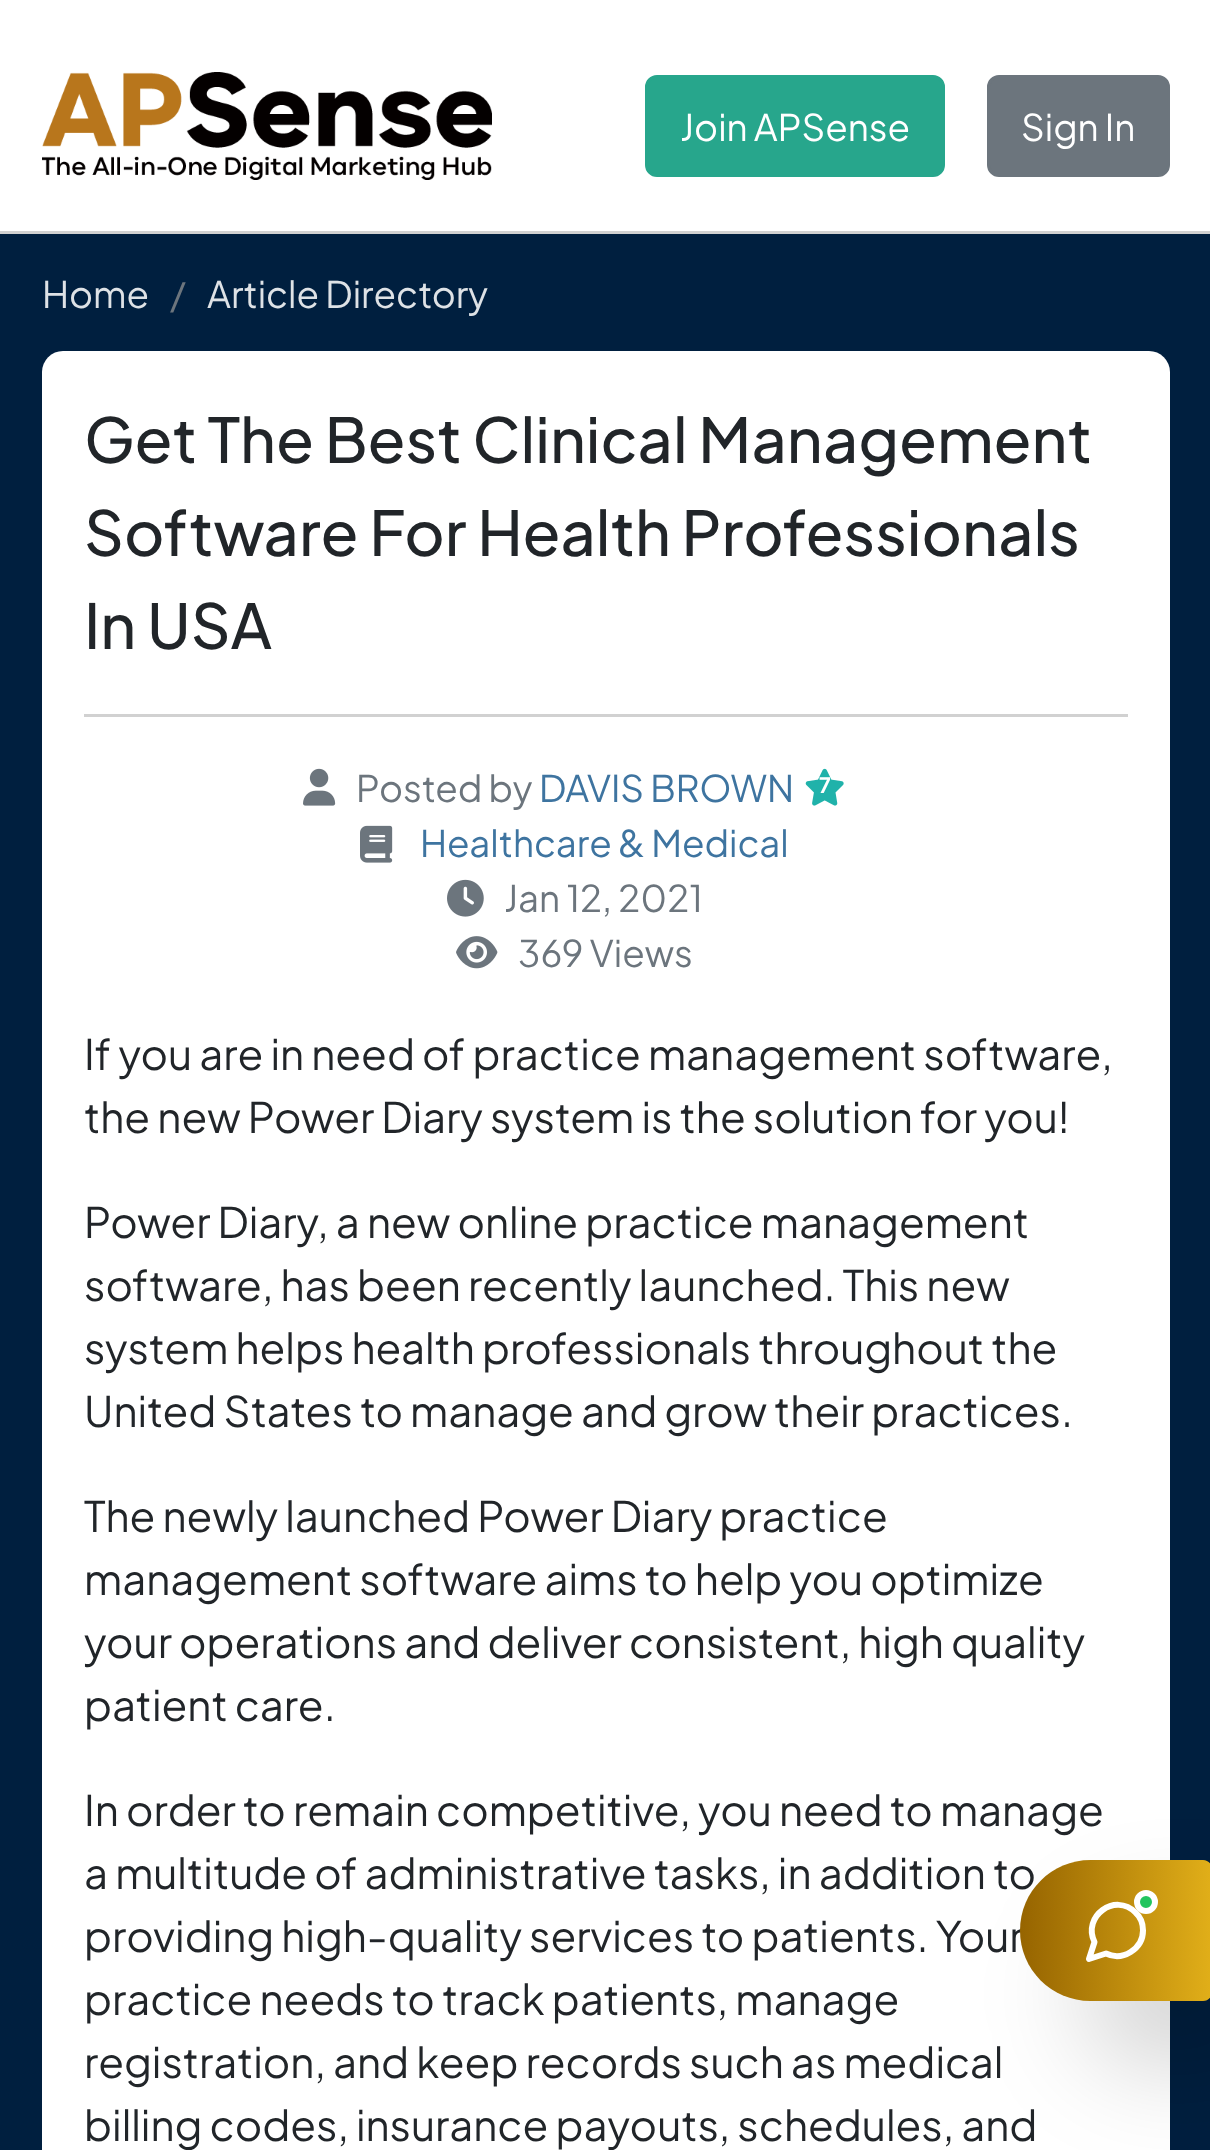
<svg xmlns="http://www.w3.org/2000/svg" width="1210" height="2150">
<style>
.a{font:36.75px Plus Jakarta Sans;fill:#fff}
.b{font:36.75px Plus Jakarta Sans;fill:#dee2e6}
.c{font:36.75px Plus Jakarta Sans;fill:#6c757d}
.d{font:500 61.9px Plus Jakarta Sans;fill:#212529}
.e{font:36.75px Plus Jakarta Sans;fill:#3e74a0}
.f{font:bold 21px Plus Jakarta Sans;fill:#fff}
.g{font:42px Plus Jakarta Sans;fill:#212529}
</style>
<defs>
<linearGradient id="g1" gradientUnits="userSpaceOnUse" x1="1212" y1="1931" x2="1020" y2="1931"><stop offset="0" stop-color="#e1af19"/><stop offset="1" stop-color="#966400"/></linearGradient>
</defs>
<rect width="100%" height="100%" fill="#001f3f"/>
<path fill="#fff" d="M0 0h1210v231H0z"/>
<path fill="#d1d1d1" d="M0 231h1210v3H0z"/>
<image href="1.png" x="42" y="72" width="450" height="108"/>
<rect fill="#27a68c" stroke="#27a68c" stroke-width="3" x="646.5" y="76.5" width="297" height="99" rx="10.5"/>
<rect fill="#6c757d" stroke="#6c757d" stroke-width="3" x="988.5" y="76.5" width="180" height="99" rx="10.5"/>
<rect fill="#fff" x="42" y="351" width="1128" height="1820" rx="21"/>
<path fill="#d1d1d1" d="M84 714h1044v3H84z"/>
<image href="2.png" x="303" y="768" width="33" height="38"/>
<image href="3.png" x="805" y="768" width="39" height="38"/>
<image href="4.png" x="360" y="825" width="33" height="38"/>
<image href="5.png" x="447" y="879" width="37" height="38"/>
<image href="6.png" x="456" y="936" width="42" height="33"/>
<rect fill="#0000002e" filter="blur(52.5px)" x="1083" y="1923" width="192" height="141" rx="70.5"/>
<text class="a" x="680" y="141">Join APSense</text>
<text class="a" x="1021" y="141">Sign In</text>
<text class="b" x="42" y="308">Home</text>
<text class="c" x="170" y="308">/</text>
<text class="b" x="207" y="308">Article Directory</text>
<text class="d" x="84" y="463">Get The Best Clinical Management</text>
<text class="d" x="84" y="556">Software For Health Professionals</text>
<text class="d" x="84" y="649">In USA</text>
<text class="c" x="356" y="802">Posted by</text>
<text class="e" x="539" y="802">DAVIS BROWN</text>
<text class="f" x="819" y="793">7</text>
<text class="e" x="420" y="857">Healthcare &amp; Medical</text>
<text class="c" x="504" y="912">Jan 12, 2021</text>
<text class="c" x="518" y="967">369 Views</text>
<text class="g" x="84" y="1070">If you are in need of practice management software,</text>
<text class="g" x="84" y="1133">the new Power Diary system is the solution for you!</text>
<text class="g" x="84" y="1238">Power Diary, a new online practice management</text>
<text class="g" x="84" y="1301">software, has been recently launched. This new</text>
<text class="g" x="84" y="1364">system helps health professionals throughout the</text>
<text class="g" x="84" y="1427">United States to manage and grow their practices.</text>
<text class="g" x="84" y="1532">The newly launched Power Diary practice</text>
<text class="g" x="84" y="1595">management software aims to help you optimize</text>
<text class="g" x="84" y="1658">your operations and deliver consistent, high quality</text>
<text class="g" x="84" y="1721">patient care.</text>
<text class="g" x="84" y="1826">In order to remain competitive, you need to manage</text>
<text class="g" x="84" y="1889">a multitude of administrative tasks, in addition to</text>
<text class="g" x="84" y="1952">providing high-quality services to patients. Your</text>
<text class="g" x="84" y="2015">practice needs to track patients, manage</text>
<text class="g" x="84" y="2078">registration, and keep records such as medical</text>
<text class="g" x="84" y="2141">billing codes, insurance payouts, schedules, and</text>
<path fill="url(#g1)" d="M1090.5 1860h112.5c5 0 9 4 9 9v123c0 5-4 9-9 9h-112.5c-39 0-70.5-31.5-70.5-70.5c0-39 31.5-70.5 70.5-70.5z"/>
<path fill="none" stroke="#fff" stroke-width="6" stroke-linecap="round" stroke-linejoin="round" d="M1143 1930.5c0 18.5-20.5 31-37 23l-17 5.5l5.5-17c-12.5-25.5 20.5-50 41-29.5c5 4.5 7.5 11 7.5 18z"/>
<circle fill="#22c55e" stroke="#fff" stroke-width="6" cx="1146" cy="1902" r="9"/>
</svg>
